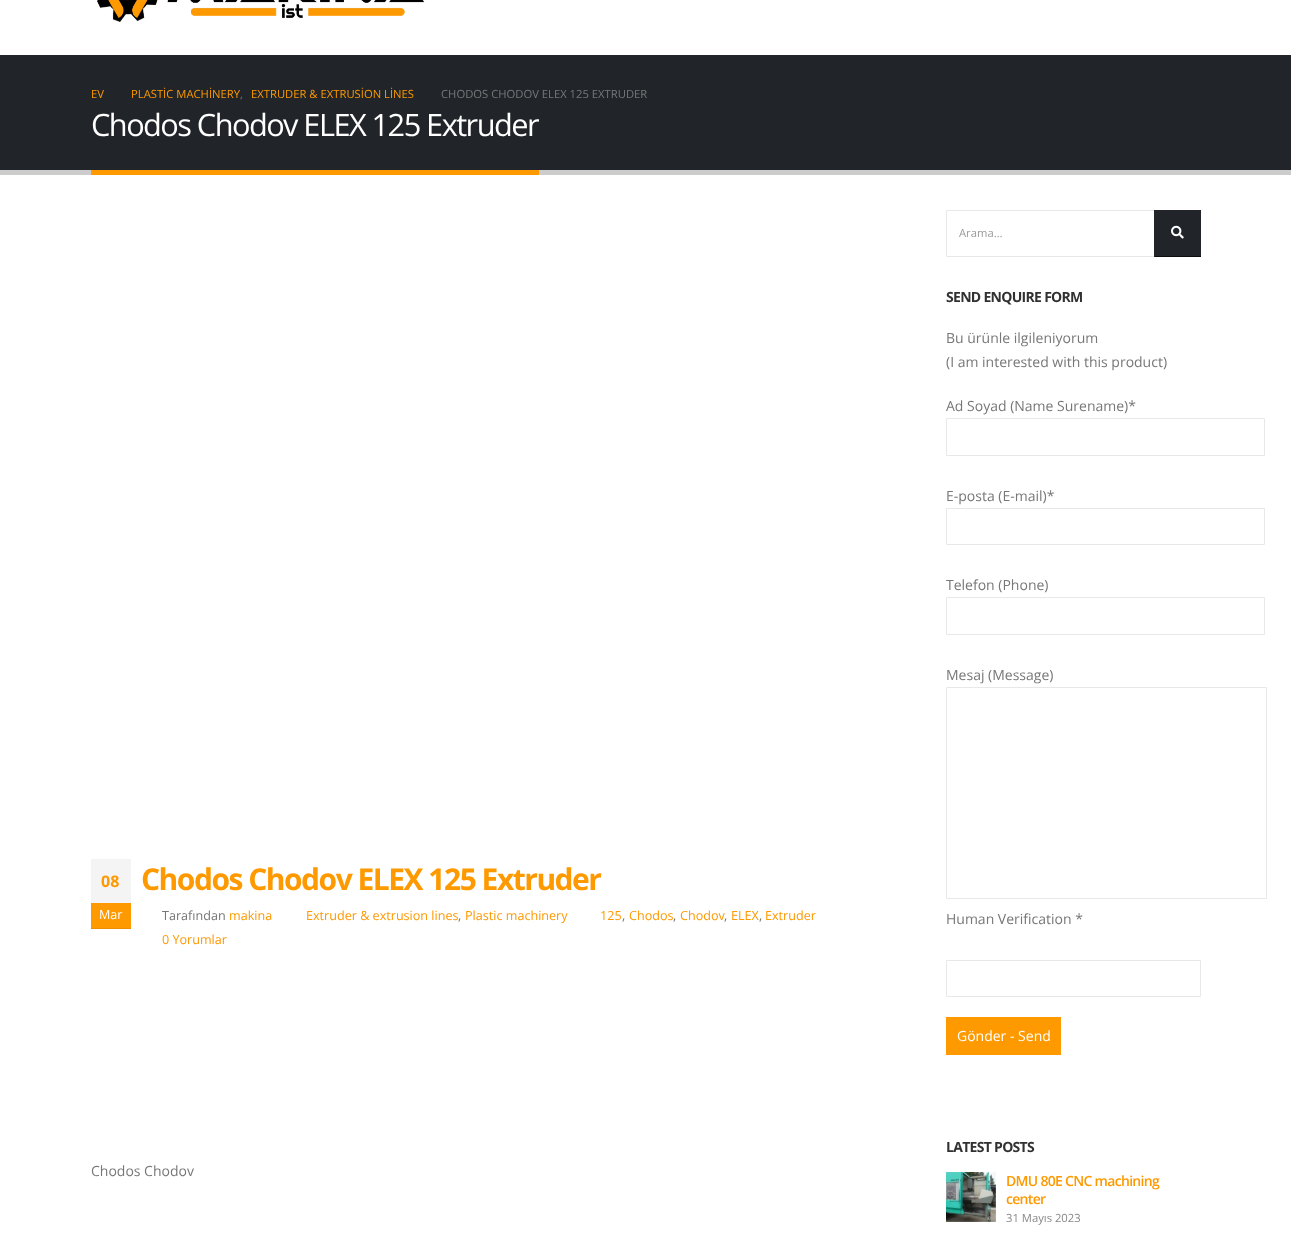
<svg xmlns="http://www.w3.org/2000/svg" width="1291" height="1235">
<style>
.a{font:11.25px Open Sans;fill:#fe9900}
.b{font:11.25px Open Sans;fill:#777}
.c{font:30.75px Open Sans;letter-spacing:-1.55px;fill:#fff}
.d{font:bold 30px Open Sans;letter-spacing:-1.5px;fill:#fe9900}
.e{font:12.6px Open Sans;fill:#777}
.f{font:12.6px Open Sans;fill:#fe9900}
.g{font:14px Open Sans;fill:#777}
.h{font:bold 16px Open Sans;fill:#fe9900}
.i{font:12.6px Open Sans;fill:#fff}
.j{font:11.25px Open Sans;fill:#999}
.k{font:bold 14px Open Sans;letter-spacing:-0.7px;fill:#313131}
.l{font:14px Open Sans;fill:#fff}
.m{font:600 14px Open Sans;letter-spacing:-0.7px;fill:#fe9900}
.n{font:11.25px Open Sans;fill:#898989}
</style>
<rect width="100%" height="100%" fill="#fff"/>
<image href="1.png" x="97" y="0" width="328" height="22"/>
<path fill="#212529" d="M0 55h1291v115H0z"/>
<path fill="#ccc" d="M0 170h1291v5H0z"/>
<path fill="#fe9900" d="M91 170h448v5H91z"/>
<path fill="#f4f4f4" d="M91 859h40v44H91z"/>
<path fill="#fe9900" d="M91 903h40v25H91z"/>
<path fill="#ec8e00" d="M91 928h40v1H91z"/>
<path fill="none" stroke="#e8e8e8" d="M946.5 210.5h208v46H946.5z"/>
<path fill="#212529" d="M1155 210h46v46H1155z"/>
<path fill="#0b0c0d" d="M1154 256h47v1H1154z"/>
<path fill="#212529" d="M1154 210h1v47H1154z"/>
<image href="2.png" x="1171" y="225" width="13" height="14"/>
<path fill="none" stroke="#e8e8e8" d="M946.5 418.5h318v37H946.5z"/>
<path fill="none" stroke="#e8e8e8" d="M946.5 508.5h318v36H946.5z"/>
<path fill="none" stroke="#e8e8e8" d="M946.5 597.5h318v37H946.5z"/>
<path fill="none" stroke="#e8e8e8" d="M946.5 687.5h320v211H946.5z"/>
<path fill="none" stroke="#e8e8e8" d="M946.5 960.5h254v36H946.5z"/>
<path fill="#fe9900" d="M946 1017h115v38H946z"/>
<image href="3.png" x="946" y="1172" width="50" height="50"/>
<text class="a" x="91" y="98">EV</text>
<text class="a" x="131" y="98">PLASTİC MACHİNERY</text>
<text class="b" x="240" y="98">,</text>
<text class="a" x="251" y="98">EXTRUDER &amp; EXTRUSİON LİNES</text>
<text class="b" x="441" y="98">CHODOS CHODOV ELEX 125 EXTRUDER</text>
<text class="c" x="91" y="136">Chodos Chodov ELEX 125 Extruder</text>
<text class="d" x="141" y="890">Chodos Chodov ELEX 125 Extruder</text>
<text class="e" x="162" y="920">Tarafından</text>
<text class="f" x="229" y="920">makina</text>
<text class="f" x="306" y="920">Extruder &amp; extrusion lines</text>
<text class="e" x="458" y="920">,</text>
<text class="f" x="465" y="920">Plastic machinery</text>
<text class="f" x="600" y="920">125</text>
<text class="e" x="622" y="920">,</text>
<text class="f" x="629" y="920">Chodos</text>
<text class="e" x="673" y="920">,</text>
<text class="f" x="680" y="920">Chodov</text>
<text class="e" x="724" y="920">,</text>
<text class="f" x="731" y="920">ELEX</text>
<text class="e" x="759" y="920">,</text>
<text class="f" x="765" y="920">Extruder</text>
<text class="f" x="162" y="944">0 Yorumlar</text>
<text class="g" x="91" y="1176">Chodos Chodov</text>
<text class="h" x="101" y="887">08</text>
<text class="i" x="99" y="919">Mar</text>
<text class="j" x="959" y="237">Arama…</text>
<text class="k" x="946" y="302">SEND ENQUIRE FORM</text>
<text class="g" x="946" y="343">Bu ürünle ilgileniyorum</text>
<text class="g" x="946" y="367">(I am interested with this product)</text>
<text class="g" x="946" y="411">Ad Soyad (Name Surename)*</text>
<text class="g" x="946" y="501">E-posta (E-mail)*</text>
<text class="g" x="946" y="590">Telefon (Phone)</text>
<text class="g" x="946" y="680">Mesaj (Message)</text>
<text class="g" x="946" y="924">Human Verification *</text>
<text class="l" x="957" y="1041">Gönder - Send</text>
<text class="k" x="946" y="1152">LATEST POSTS</text>
<text class="m" x="1006" y="1186">DMU 80E CNC machining</text>
<text class="m" x="1006" y="1204">center</text>
<text class="n" x="1006" y="1222">31 Mayıs 2023</text>
</svg>
